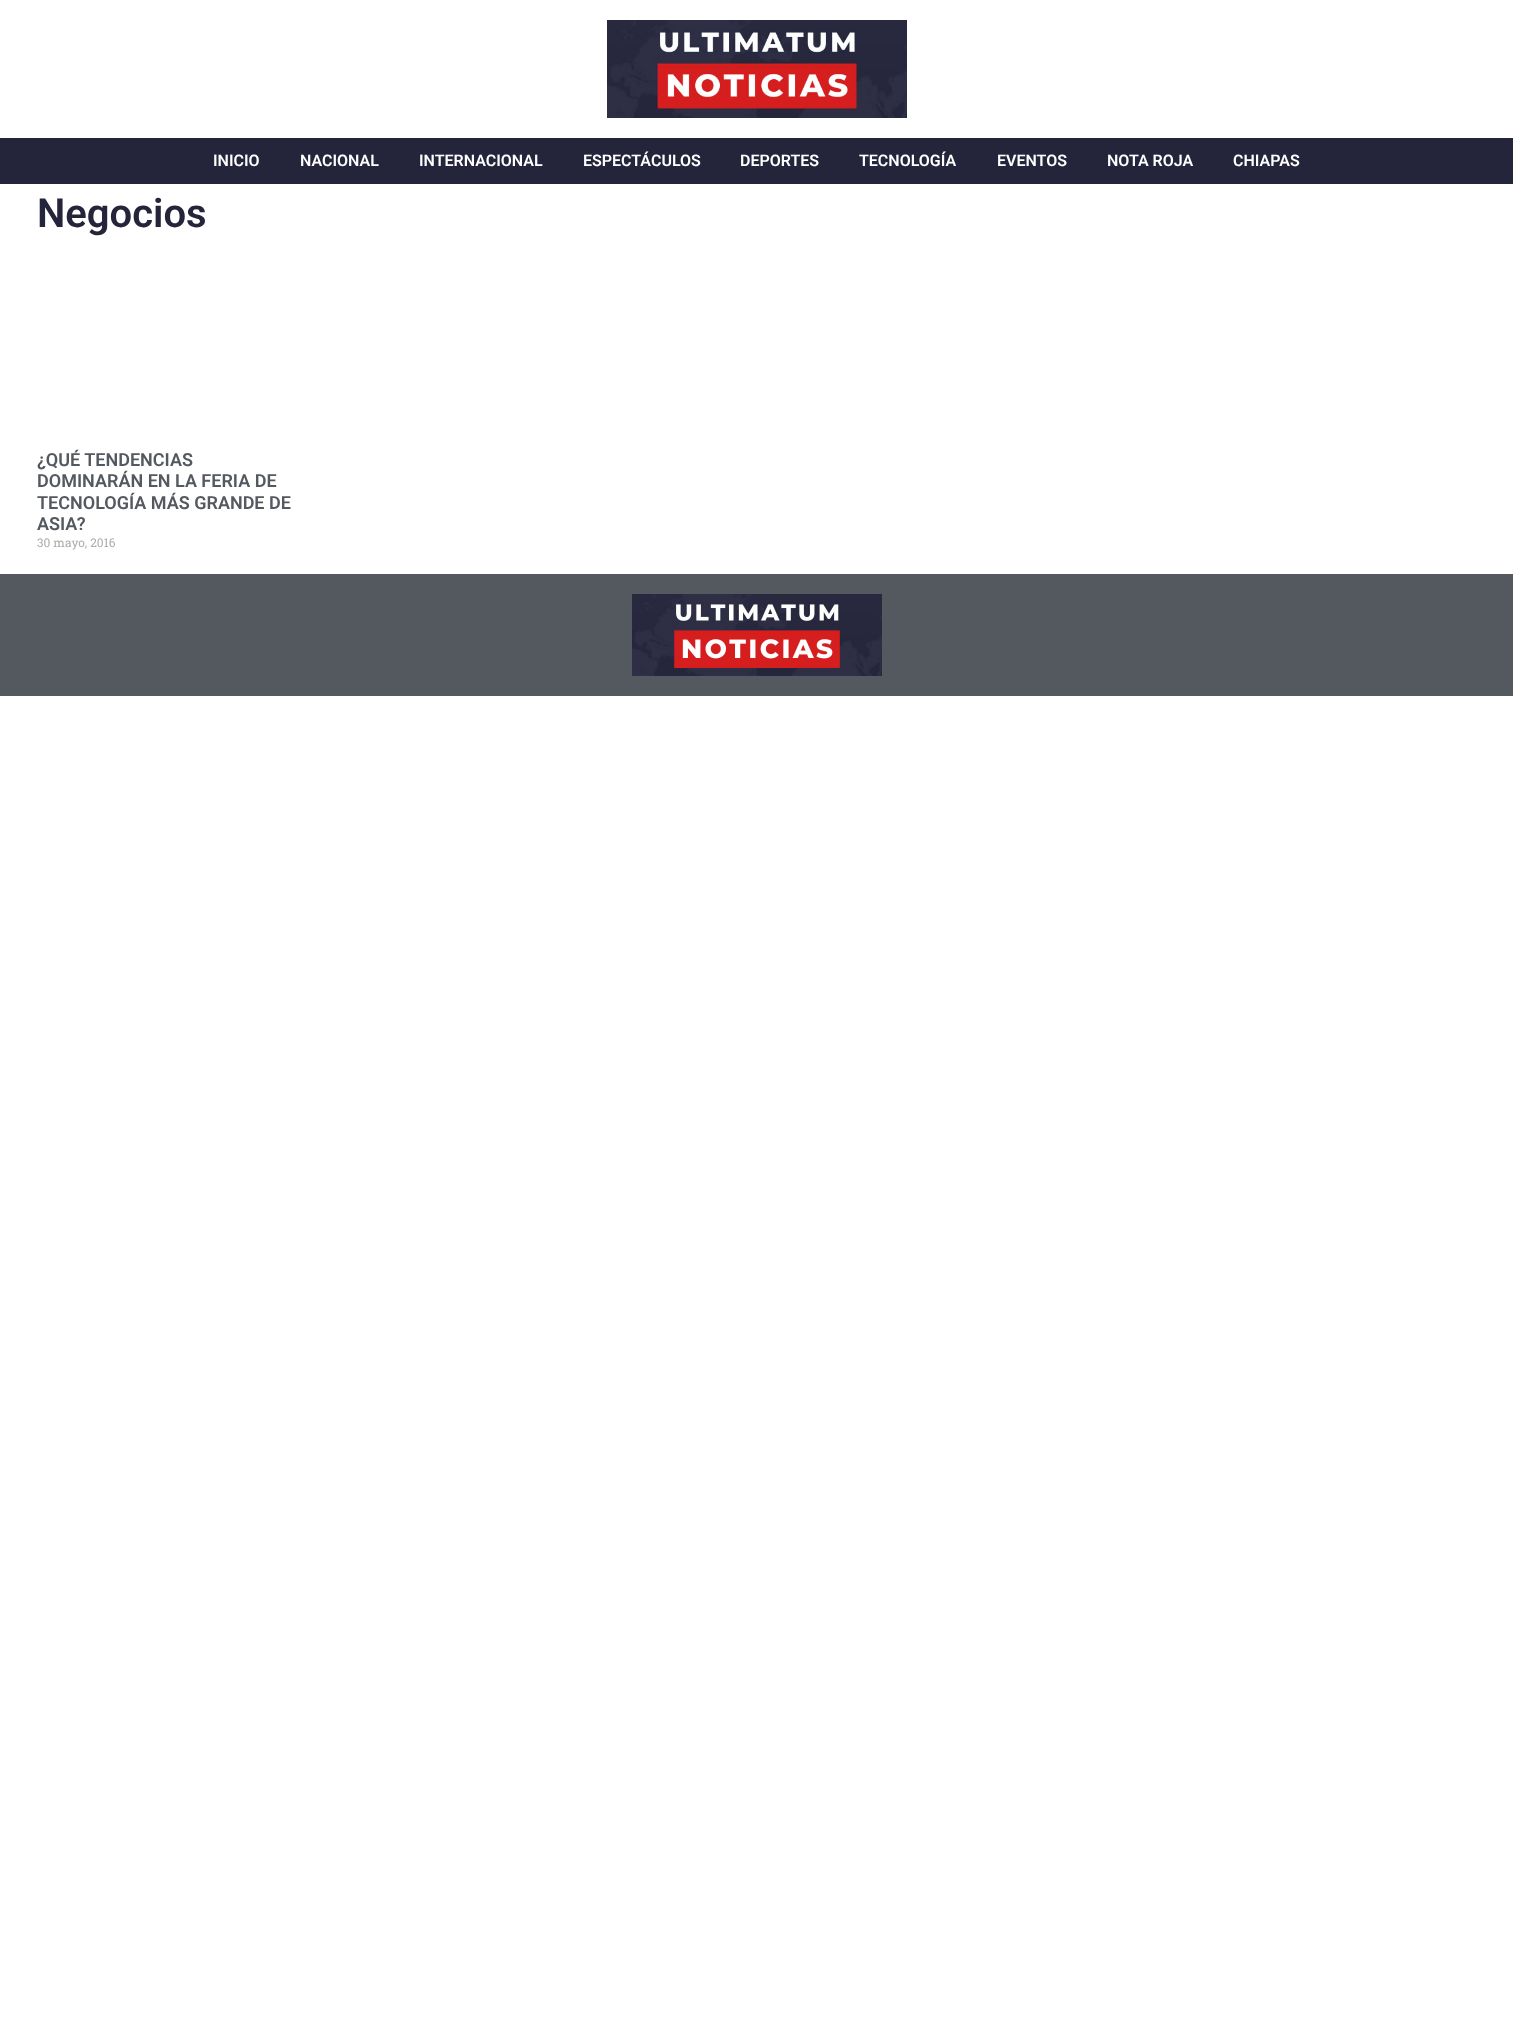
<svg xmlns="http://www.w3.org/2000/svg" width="1513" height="2018">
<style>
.a{font:600 16px Roboto;fill:#fff}
.b{font:600 40px Roboto;fill:#24243b}
.c{font:600 18px Roboto;fill:#54595f}
.d{font:12px Roboto Slab;fill:#adadad}
</style>
<rect width="100%" height="100%" fill="#fff"/>
<image href="1.png" x="607" y="20" width="300" height="98"/>
<path fill="#24243b" d="M0 138h1513v46H0z"/>
<path fill="#54595f" d="M0 574h1513v122H0z"/>
<image href="2.png" x="632" y="594" width="250" height="82"/>
<text class="a" x="213" y="166">INICIO</text>
<text class="a" x="300" y="166">NACIONAL</text>
<text class="a" x="419" y="166">INTERNACIONAL</text>
<text class="a" x="583" y="166">ESPECTÁCULOS</text>
<text class="a" x="740" y="166">DEPORTES</text>
<text class="a" x="859" y="166">TECNOLOGÍA</text>
<text class="a" x="997" y="166">EVENTOS</text>
<text class="a" x="1107" y="166">NOTA ROJA</text>
<text class="a" x="1233" y="166">CHIAPAS</text>
<text class="b" x="37" y="227">Negocios</text>
<text class="c" x="37" y="466">¿QUÉ TENDENCIAS</text>
<text class="c" x="37" y="487">DOMINARÁN EN LA FERIA DE</text>
<text class="c" x="37" y="509">TECNOLOGÍA MÁS GRANDE DE</text>
<text class="c" x="37" y="530">ASIA?</text>
<text class="d" x="37" y="547">30 mayo, 2016</text>
</svg>
